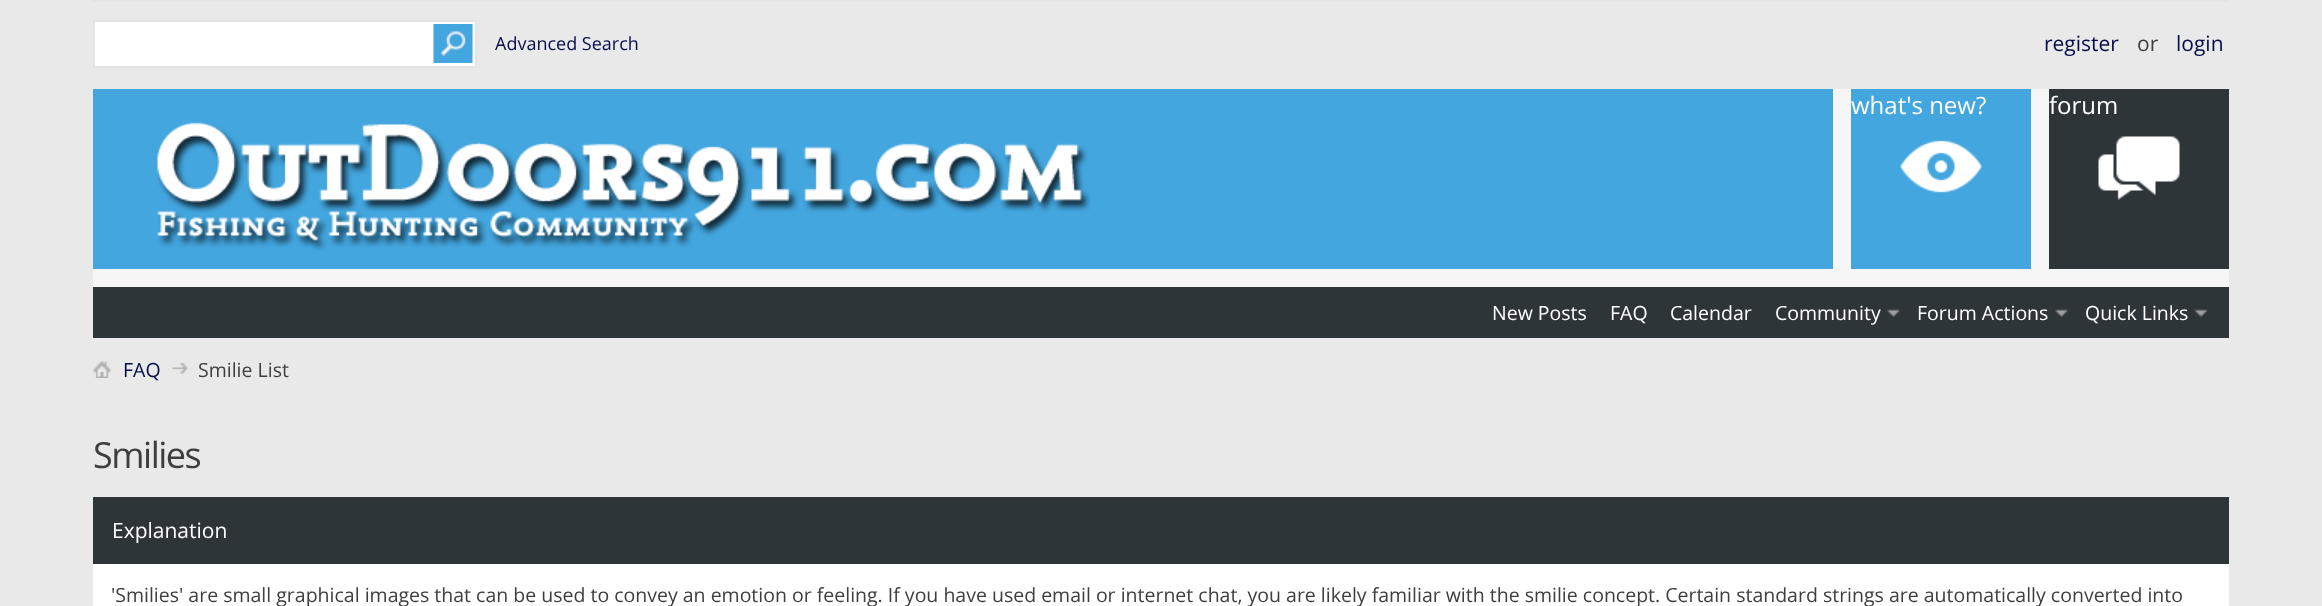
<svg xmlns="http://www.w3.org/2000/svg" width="2322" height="606">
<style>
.a{font:18px Open Sans;fill:#050e4a}
.b{font:21px Open Sans;fill:#050e4a}
.c{font:21px Open Sans;fill:#3e3e3e}
.d{font:24px Open Sans;fill:#fff}
.e{font:19.5px Open Sans;fill:#fff}
.f{font:19.5px Open Sans;fill:#050e4a}
.g{font:19.5px Open Sans;fill:#3e3e3e}
.h{font:36px Open Sans;letter-spacing:-1.5px;fill:#3e3e3e}
.i{font:21px Open Sans;fill:#fff}
</style>
<rect width="100%" height="100%" fill="#e9e9e9"/>
<path fill="#e4e4e4" d="M93 0h2136v2H93z"/>
<path fill="#fff" stroke="#e4e4e4" stroke-width="2" d="M94 21h382v46H94z"/>
<image href="1.png" x="433" y="24" width="40" height="39"/>
<path fill="#43a6df" d="M93 89h1938v180H93z"/>
<image href="2.png" x="157" y="122" width="934" height="129"/>
<path fill="#f6f6f6" d="M1833 89h18v180H1833z"/>
<image href="3.png" x="1900" y="140" width="82" height="53"/>
<path fill="#f6f6f6" d="M2031 89h18v180H2031z"/>
<path fill="#2e3539" d="M2049 89h180v180H2049z"/>
<image href="4.png" x="2098" y="136" width="82" height="64"/>
<path fill="#2e3539" d="M93 287h2136v51H93z"/>
<path fill="#f6f6f6" d="M93 269h2136v18H93z"/>
<image href="5.png" x="1887" y="309" width="13" height="8"/>
<image href="6.png" x="2055" y="309" width="13" height="8"/>
<image href="7.png" x="2194" y="309" width="14" height="8"/>
<image href="8.png" x="93" y="361" width="18" height="17"/>
<image href="9.png" x="172" y="362" width="16" height="12"/>
<path fill="#2e3539" d="M93 497h2136v67H93z"/>
<path fill="#fff" d="M93 564h2136v42H93z"/>
<text class="a" x="495" y="50">Advanced Search</text>
<text class="b" x="2044" y="51">register</text>
<text class="c" x="2137" y="51">or</text>
<text class="b" x="2176" y="51">login</text>
<text class="d" x="1851" y="114">what's new?</text>
<text class="d" x="2049" y="114">forum</text>
<text class="e" x="1492" y="320">New Posts</text>
<text class="e" x="1610" y="320">FAQ</text>
<text class="e" x="1670" y="320">Calendar</text>
<text class="e" x="1775" y="320">Community</text>
<text class="e" x="1917" y="320">Forum Actions</text>
<text class="e" x="2085" y="320">Quick Links</text>
<text class="f" x="123" y="377">FAQ</text>
<text class="g" x="198" y="377">Smilie List</text>
<text class="h" x="93" y="468">Smilies</text>
<text class="i" x="112" y="538">Explanation</text>
<text class="g" x="111" y="602">'Smilies' are small graphical images that can be used to convey an emotion or feeling. If you have used email or internet chat, you are likely familiar with the smilie concept. Certain standard strings are automatically converted into</text>
</svg>
